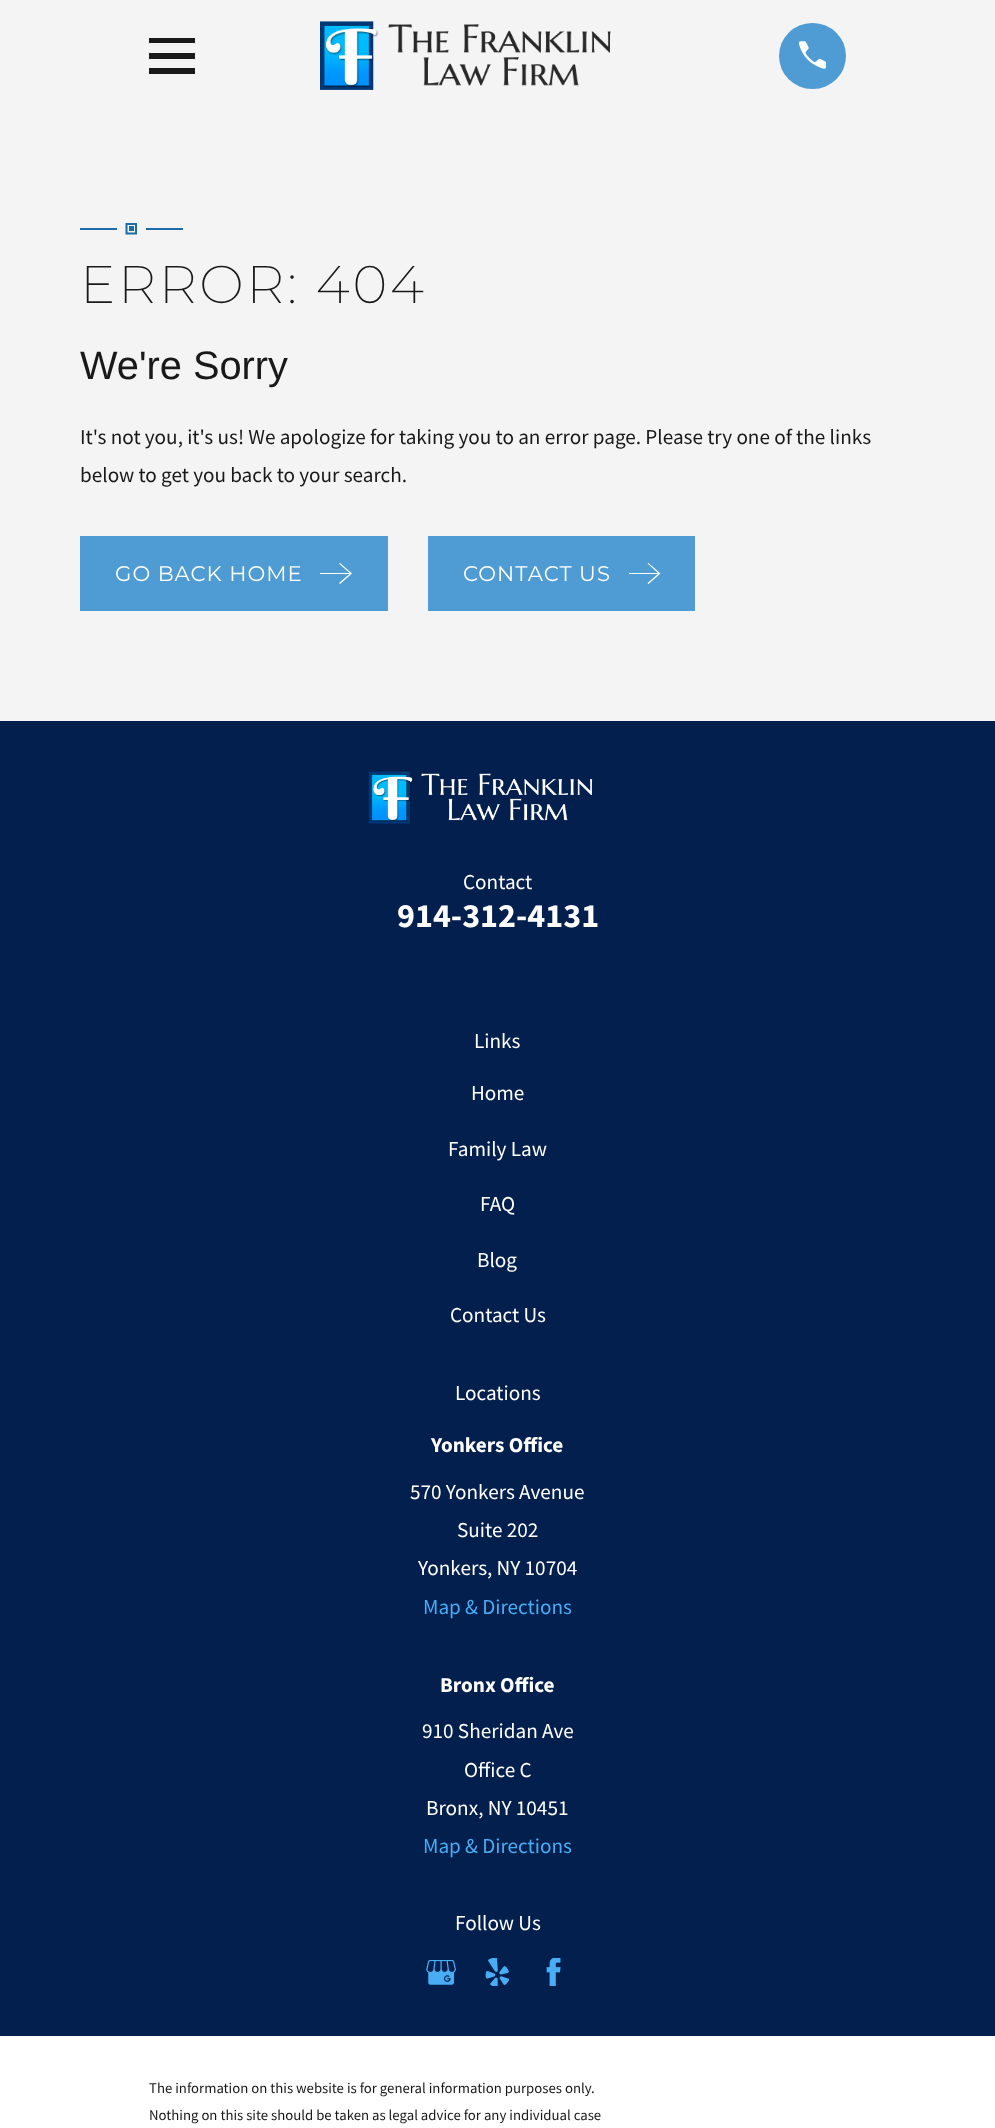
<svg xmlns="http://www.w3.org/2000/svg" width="995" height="2128">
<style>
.a{font:200 53px Montserrat;letter-spacing:2.6px;fill:#191919}
.b{font:39.75px Liberation Sans;fill:#191919}
.c{font:21.2px Source Sans Pro;fill:#191919}
.d{font:21.2px Montserrat;letter-spacing:1px;fill:#fff}
.e{font:21.2px Source Sans Pro;fill:#fff}
.f{font:bold 34px Source Sans Pro;fill:#fff}
.g{font:bold 21.2px Source Sans Pro;fill:#fff}
.h{font:21.2px Source Sans Pro;fill:#48adf5}
.i{font:14.75px Source Sans Pro;fill:#191919}
</style>
<rect width="100%" height="100%" fill="#fff"/>
<path fill="#f4f4f4" d="M0 0h995v721H0z"/>
<path fill="#191919" d="M149 38v5h46v-5zm0 15v6h46v-6zm0 15v6h46v-6z"/>
<image href="1.png" x="320" y="21" width="291" height="69"/>
<rect fill="#4e9cd3" x="779" y="23" width="67" height="66" rx="33"/>
<image href="2.png" x="799" y="41" width="27" height="28"/>
<path fill="#1a6da9" d="M146 228h37v2H146z"/>
<path fill="#1a6da9" d="M80 228h37v2H80z"/>
<path fill="#1a6da9" d="M125.5 234.5h11.5v-11.5h-11.5zm2-9.5h7.5v7.5h-7.5z"/>
<path fill="#1a6da9" d="M129 226h5v5H129z"/>
<path fill="#4e9cd3" d="M80 536h308v75H80z"/>
<path fill="#fff" d="M339 583l1 1l12-10.5l-12-10.5l-1 .5l10.5 9.5h-29.5v1h29.5z"/>
<path fill="#4e9cd3" d="M428 536h267v75H428z"/>
<path fill="#fff" d="M647.5 583l1 1l12-10.5l-12-10.5l-1 .5l10.5 9.5h-29v1h29z"/>
<path fill="#021f4e" d="M0 721h995v1315H0z"/>
<image href="3.png" x="368" y="771" width="225" height="53"/>
<image href="4.png" x="426" y="1960" width="30" height="25"/>
<image href="5.png" x="485" y="1958" width="24" height="28"/>
<image href="6.png" x="546" y="1958" width="15" height="28"/>
<text class="a" x="80" y="303">ERROR: 404</text>
<text class="b" x="80" y="379">We're Sorry</text>
<text class="c" x="80" y="444">It's not you, it's us! We apologize for taking you to an error page. Please try one of the links</text>
<text class="c" x="80" y="482">below to get you back to your search.</text>
<text class="d" x="115" y="581">GO BACK HOME</text>
<text class="d" x="463" y="581">CONTACT US</text>
<text class="e" x="463" y="889">Contact</text>
<text class="f" x="397" y="927">914-312-4131</text>
<text class="e" x="474" y="1048">Links</text>
<text class="e" x="471" y="1100">Home</text>
<text class="e" x="448" y="1156">Family Law</text>
<text class="e" x="480" y="1211">FAQ</text>
<text class="e" x="477" y="1267">Blog</text>
<text class="e" x="450" y="1322">Contact Us</text>
<text class="e" x="455" y="1400">Locations</text>
<text class="g" x="431" y="1452">Yonkers Office</text>
<text class="e" x="410" y="1499">570 Yonkers Avenue</text>
<text class="e" x="457" y="1537">Suite 202</text>
<text class="e" x="418" y="1575">Yonkers, NY 10704</text>
<text class="h" x="423" y="1614">Map &amp; Directions</text>
<text class="g" x="440" y="1692">Bronx Office</text>
<text class="e" x="422" y="1738">910 Sheridan Ave</text>
<text class="e" x="464" y="1777">Office C</text>
<text class="e" x="426" y="1815">Bronx, NY 10451</text>
<text class="h" x="423" y="1853">Map &amp; Directions</text>
<text class="e" x="455" y="1930">Follow Us</text>
<text class="i" x="149" y="2093">The information on this website is for general information purposes only.</text>
<text class="i" x="149" y="2120">Nothing on this site should be taken as legal advice for any individual case</text>
</svg>
